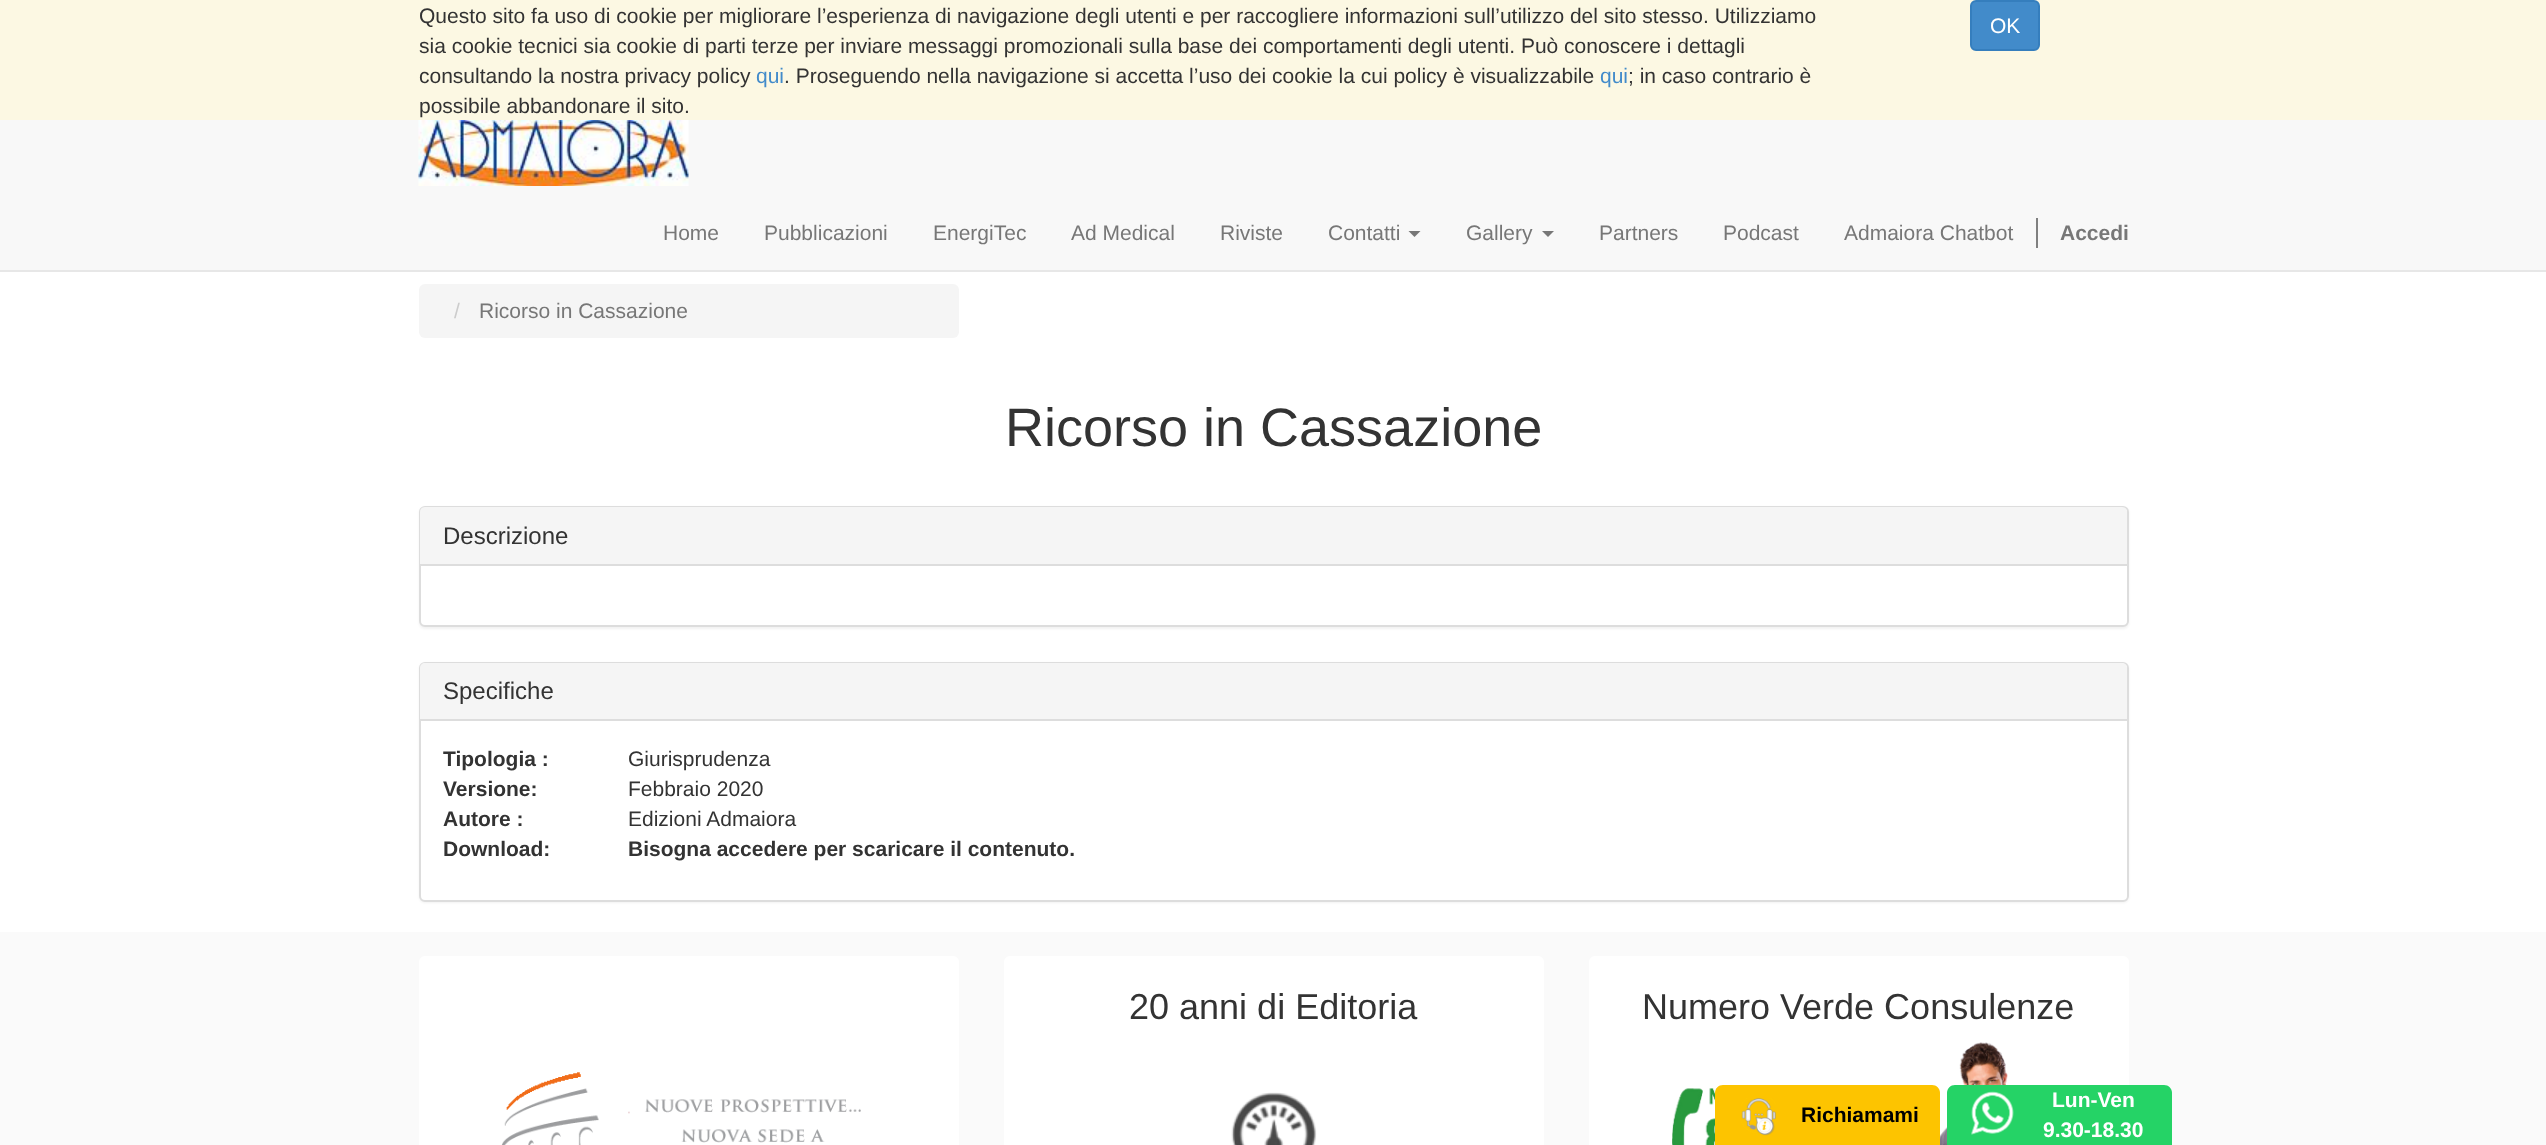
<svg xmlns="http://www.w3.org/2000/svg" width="2546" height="1145">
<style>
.a{font:21px Liberation Sans;fill:#333}
.b{font:21px Liberation Sans;fill:#428bca}
.c{font:21px Liberation Sans;fill:#fff}
.d{font:21px Liberation Sans;fill:#777}
.e{font:bold 21px Liberation Sans;fill:#777}
.f{font:21px Liberation Sans;fill:#ccc}
.g{font:54px Liberation Sans;fill:#333}
.h{font:24px Liberation Sans;fill:#333}
.i{font:bold 21px Liberation Sans;fill:#333}
.j{font:36px Liberation Sans;fill:#333}
.k{font:bold 21px Liberation Sans;fill:#000}
.l{font:bold 21px Liberation Sans;fill:#fff}
</style>
<rect width="100%" height="100%" fill="#fff"/>
<path fill="#fcf8e3" d="M0 0h2546v120H0z"/>
<rect fill="#428bca" stroke="#357ebd" stroke-width="2" x="1971" y="1" width="68" height="49" rx="5"/>
<path fill="#f8f8f8" d="M0 120h2546v150H0z"/>
<path fill="#e7e7e7" d="M0 270h2546v2H0z"/>
<image href="1.png" x="418" y="120" width="271" height="66"/>
<path fill="#777" d="M1408.5 231h12l-6 6z"/>
<path fill="#777" d="M1542 231h12l-6 6z"/>
<path fill="#808080" d="M2036 218h2v30H2036z"/>
<rect fill="#f5f5f5" x="419" y="284" width="540" height="54" rx="6"/>
<rect fill="#0000000d" filter="blur(1px)" x="419" y="507" width="1710" height="122" rx="6"/>
<rect fill="#fff" stroke="#ddd" stroke-width="2" x="420" y="507" width="1708" height="119" rx="5"/>
<path fill="#f5f5f5" d="M425 507h1697c3 0 5 2 5 5v54h-1707v-54c0-3 2-5 5-5z"/>
<path fill="#ddd" d="M420 564h1707v2H420z"/>
<rect fill="#0000000d" filter="blur(1px)" x="419" y="663" width="1710" height="240" rx="6"/>
<rect fill="#fff" stroke="#ddd" stroke-width="2" x="420" y="663" width="1708" height="238" rx="5"/>
<path fill="#f5f5f5" d="M425 663h1697c3 0 5 2 5 5v52h-1707v-52c0-3 2-5 5-5z"/>
<path fill="#ddd" d="M420 719h1707v2H420z"/>
<path fill="#fafafa" d="M0 932h2546v213H0z"/>
<rect fill="#fff" x="419" y="956" width="540" height="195" rx="6"/>
<image href="2.png" x="501" y="1072" width="360" height="73"/>
<rect fill="#fff" x="1004" y="956" width="540" height="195" rx="6"/>
<image href="3.png" x="1231" y="1092" width="86" height="53"/>
<rect fill="#fff" x="1589" y="956" width="540" height="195" rx="6"/>
<image href="4.png" x="1672" y="1042" width="336" height="103"/>
<path fill="#fdc400" d="M1723 1085h209c4.5 0 8 3.5 8 8v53h-225v-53c0-4.5 3.5-8 8-8z"/>
<image href="5.png" x="1741" y="1098" width="35" height="38"/>
<path fill="#25d366" d="M1955 1085h209c4.5 0 8 3.5 8 8v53h-225v-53c0-4.5 3.5-8 8-8z"/>
<image href="6.png" x="1971" y="1091" width="43" height="44"/>
<text class="a" x="419" y="23">Questo sito fa uso di cookie per migliorare l’esperienza di navigazione degli utenti e per raccogliere informazioni sull’utilizzo del sito stesso. Utilizziamo</text>
<text class="a" x="419" y="53">sia cookie tecnici sia cookie di parti terze per inviare messaggi promozionali sulla base dei comportamenti degli utenti. Può conoscere i dettagli</text>
<text class="a" x="419" y="83">consultando la nostra privacy policy</text>
<text class="b" x="756" y="83">qui</text>
<text class="a" x="784" y="83">. Proseguendo nella navigazione si accetta l’uso dei cookie la cui policy è visualizzabile</text>
<text class="b" x="1600" y="83">qui</text>
<text class="a" x="1628" y="83">; in caso contrario è</text>
<text class="a" x="419" y="113">possibile abbandonare il sito.</text>
<text class="c" x="1990" y="33">OK</text>
<text class="d" x="663" y="240">Home</text>
<text class="d" x="764" y="240">Pubblicazioni</text>
<text class="d" x="933" y="240">EnergiTec</text>
<text class="d" x="1071" y="240">Ad Medical</text>
<text class="d" x="1220" y="240">Riviste</text>
<text class="d" x="1328" y="240">Contatti</text>
<text class="d" x="1466" y="240">Gallery</text>
<text class="d" x="1599" y="240">Partners</text>
<text class="d" x="1723" y="240">Podcast</text>
<text class="d" x="1844" y="240">Admaiora Chatbot</text>
<text class="e" x="2060" y="240">Accedi</text>
<text class="f" x="454" y="318">/</text>
<text class="d" x="479" y="318">Ricorso in Cassazione</text>
<text class="g" x="1005" y="446">Ricorso in Cassazione</text>
<text class="h" x="443" y="544">Descrizione</text>
<text class="h" x="443" y="699">Specifiche</text>
<text class="i" x="443" y="766">Tipologia :</text>
<text class="a" x="628" y="766">Giurisprudenza</text>
<text class="i" x="443" y="796">Versione:</text>
<text class="a" x="628" y="796">Febbraio 2020</text>
<text class="i" x="443" y="826">Autore :</text>
<text class="a" x="628" y="826">Edizioni Admaiora</text>
<text class="i" x="443" y="856">Download:</text>
<text class="i" x="628" y="856">Bisogna accedere per scaricare il contenuto.</text>
<text class="j" x="1129" y="1019">20 anni di Editoria</text>
<text class="j" x="1642" y="1019">Numero Verde Consulenze</text>
<text class="k" x="1801" y="1122">Richiamami</text>
<text class="l" x="2052" y="1107">Lun-Ven</text>
<text class="l" x="2043" y="1137">9.30-18.30</text>
</svg>
